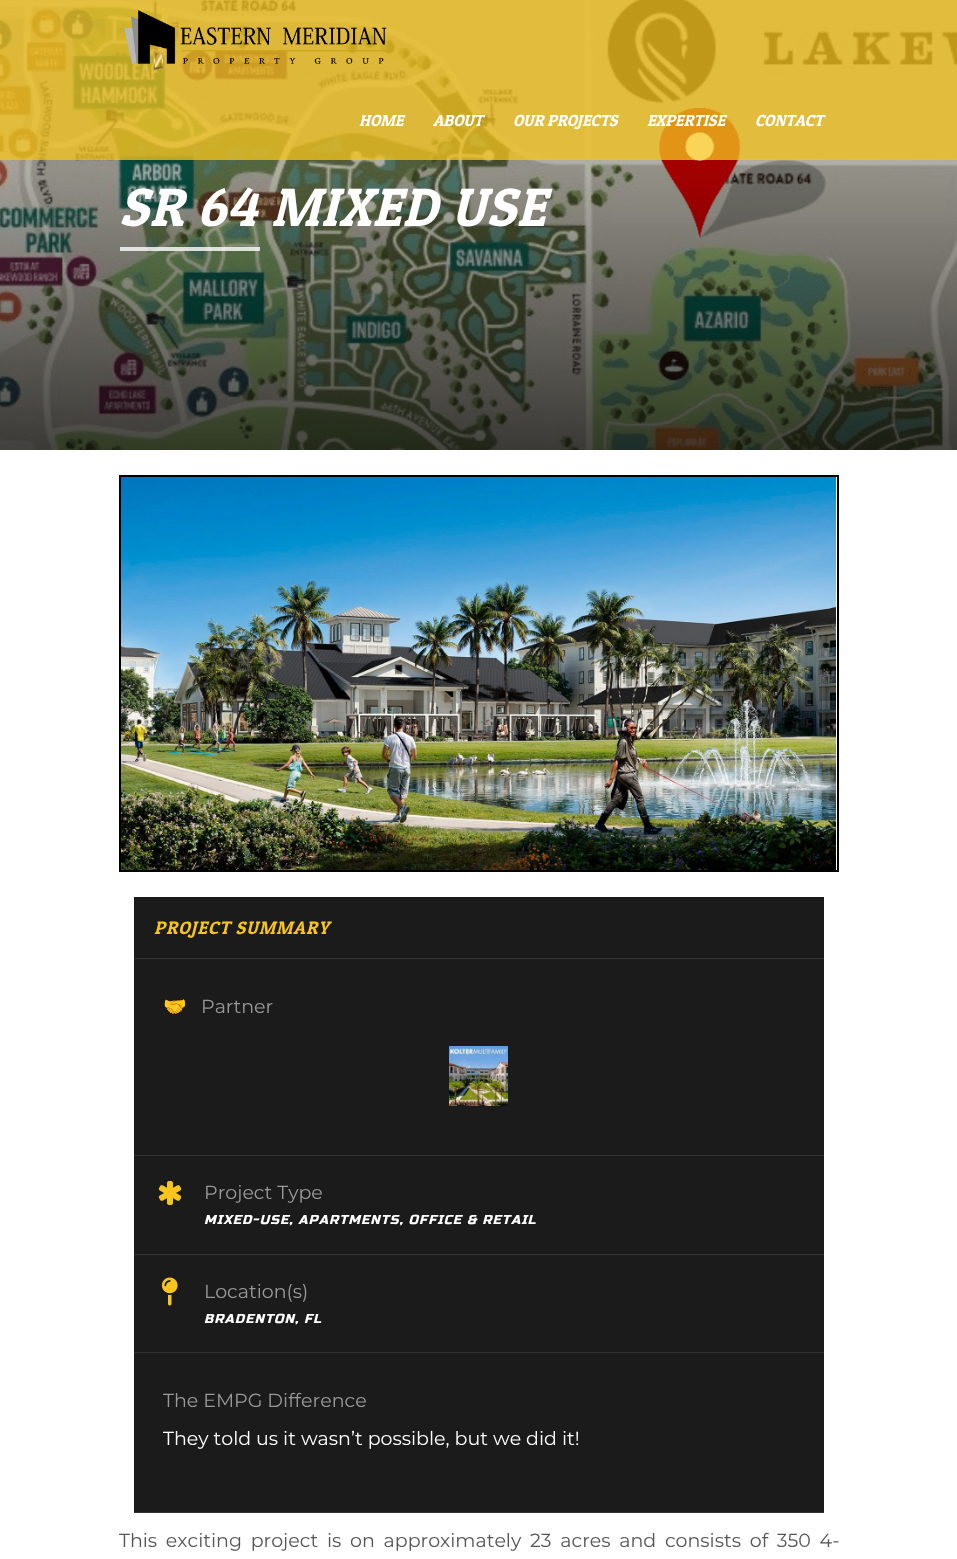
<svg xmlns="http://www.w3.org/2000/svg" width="957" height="1559">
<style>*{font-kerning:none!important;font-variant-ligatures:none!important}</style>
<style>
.a{font:italic 16px Patua One;fill:#fff}
.b{font:italic 54px Patua One;letter-spacing:1px;fill:#fff}
.c{font:italic 18px Patua One;letter-spacing:1px;fill:#f7c51e}
.d{font:19px Noto Color Emoji;fill:#999}
.e{font:100 19px Montserrat;fill:#999}
.f{font:italic 13px Russo One;letter-spacing:1px;fill:#fff}
.g{font:100 19px Montserrat;fill:#fff}
.h{font:100 19px Montserrat;fill:#555}
</style>
<rect width="100%" height="100%" fill="#fff"/>
<image href="2.png" x="0" y="0" width="957" height="450"/>
<path fill="#f7c51ebf" d="M0 0h957v160H0z"/>
<image href="1.png" x="124" y="10" width="263" height="60"/>
<path fill="#ffffffcc" d="M120 247h140v4H120z"/>
<path fill="none" stroke="#000" stroke-width="2" d="M120 476h718v395H120z"/>
<image href="3.png" x="121" y="477" width="715" height="393"/>
<path fill="#1b1b1b" d="M134 897h690v61H134z"/>
<path fill="#323232" d="M134 958h690v1H134z"/>
<path fill="#1b1b1b" d="M134 959h690v196H134z"/>
<path fill="#323232" d="M134 1155h690v1H134z"/>
<image href="4.png" x="449" y="1046" width="59" height="60"/>
<path fill="#1b1b1b" d="M134 1156h690v98H134z"/>
<path fill="#323232" d="M134 1254h690v1H134z"/>
<image href="5.png" x="158" y="1181" width="24" height="24"/>
<path fill="#1b1b1b" d="M134 1255h690v97H134z"/>
<path fill="#323232" d="M134 1352h690v1H134z"/>
<image href="6.png" x="161" y="1277" width="17" height="29"/>
<path fill="#1b1b1b" d="M134 1353h690v159H134z"/>
<path fill="#323232" d="M134 1512h690v1H134z"/>
<text class="a" x="359" y="126">HOME</text>
<text class="a" x="433" y="126">ABOUT</text>
<text class="a" x="513" y="126">OUR PROJECTS</text>
<text class="a" x="647" y="126">EXPERTISE</text>
<text class="a" x="755" y="126">CONTACT</text>
<text class="b" x="119" y="226">SR 64 MIXED USE</text>
<text class="c" x="154" y="934">PROJECT SUMMARY</text>
<text class="d" x="163" y="1013">🤝</text>
<text class="e" x="201" y="1013">Partner</text>
<text class="e" x="204" y="1199">Project Type</text>
<text class="f" x="204" y="1224">MIXED-USE, APARTMENTS, OFFICE &amp; RETAIL</text>
<text class="e" x="204" y="1298">Location(s)</text>
<text class="f" x="204" y="1323">BRADENTON, FL</text>
<text class="e" x="163" y="1407">The EMPG Difference</text>
<text class="g" x="163" y="1445">They told us it wasn’t possible, but we did it!</text>
<text class="h" x="119" y="1547" word-spacing="3.75">This exciting project is on approximately 23 acres and consists of 350 4-</text>
</svg>
